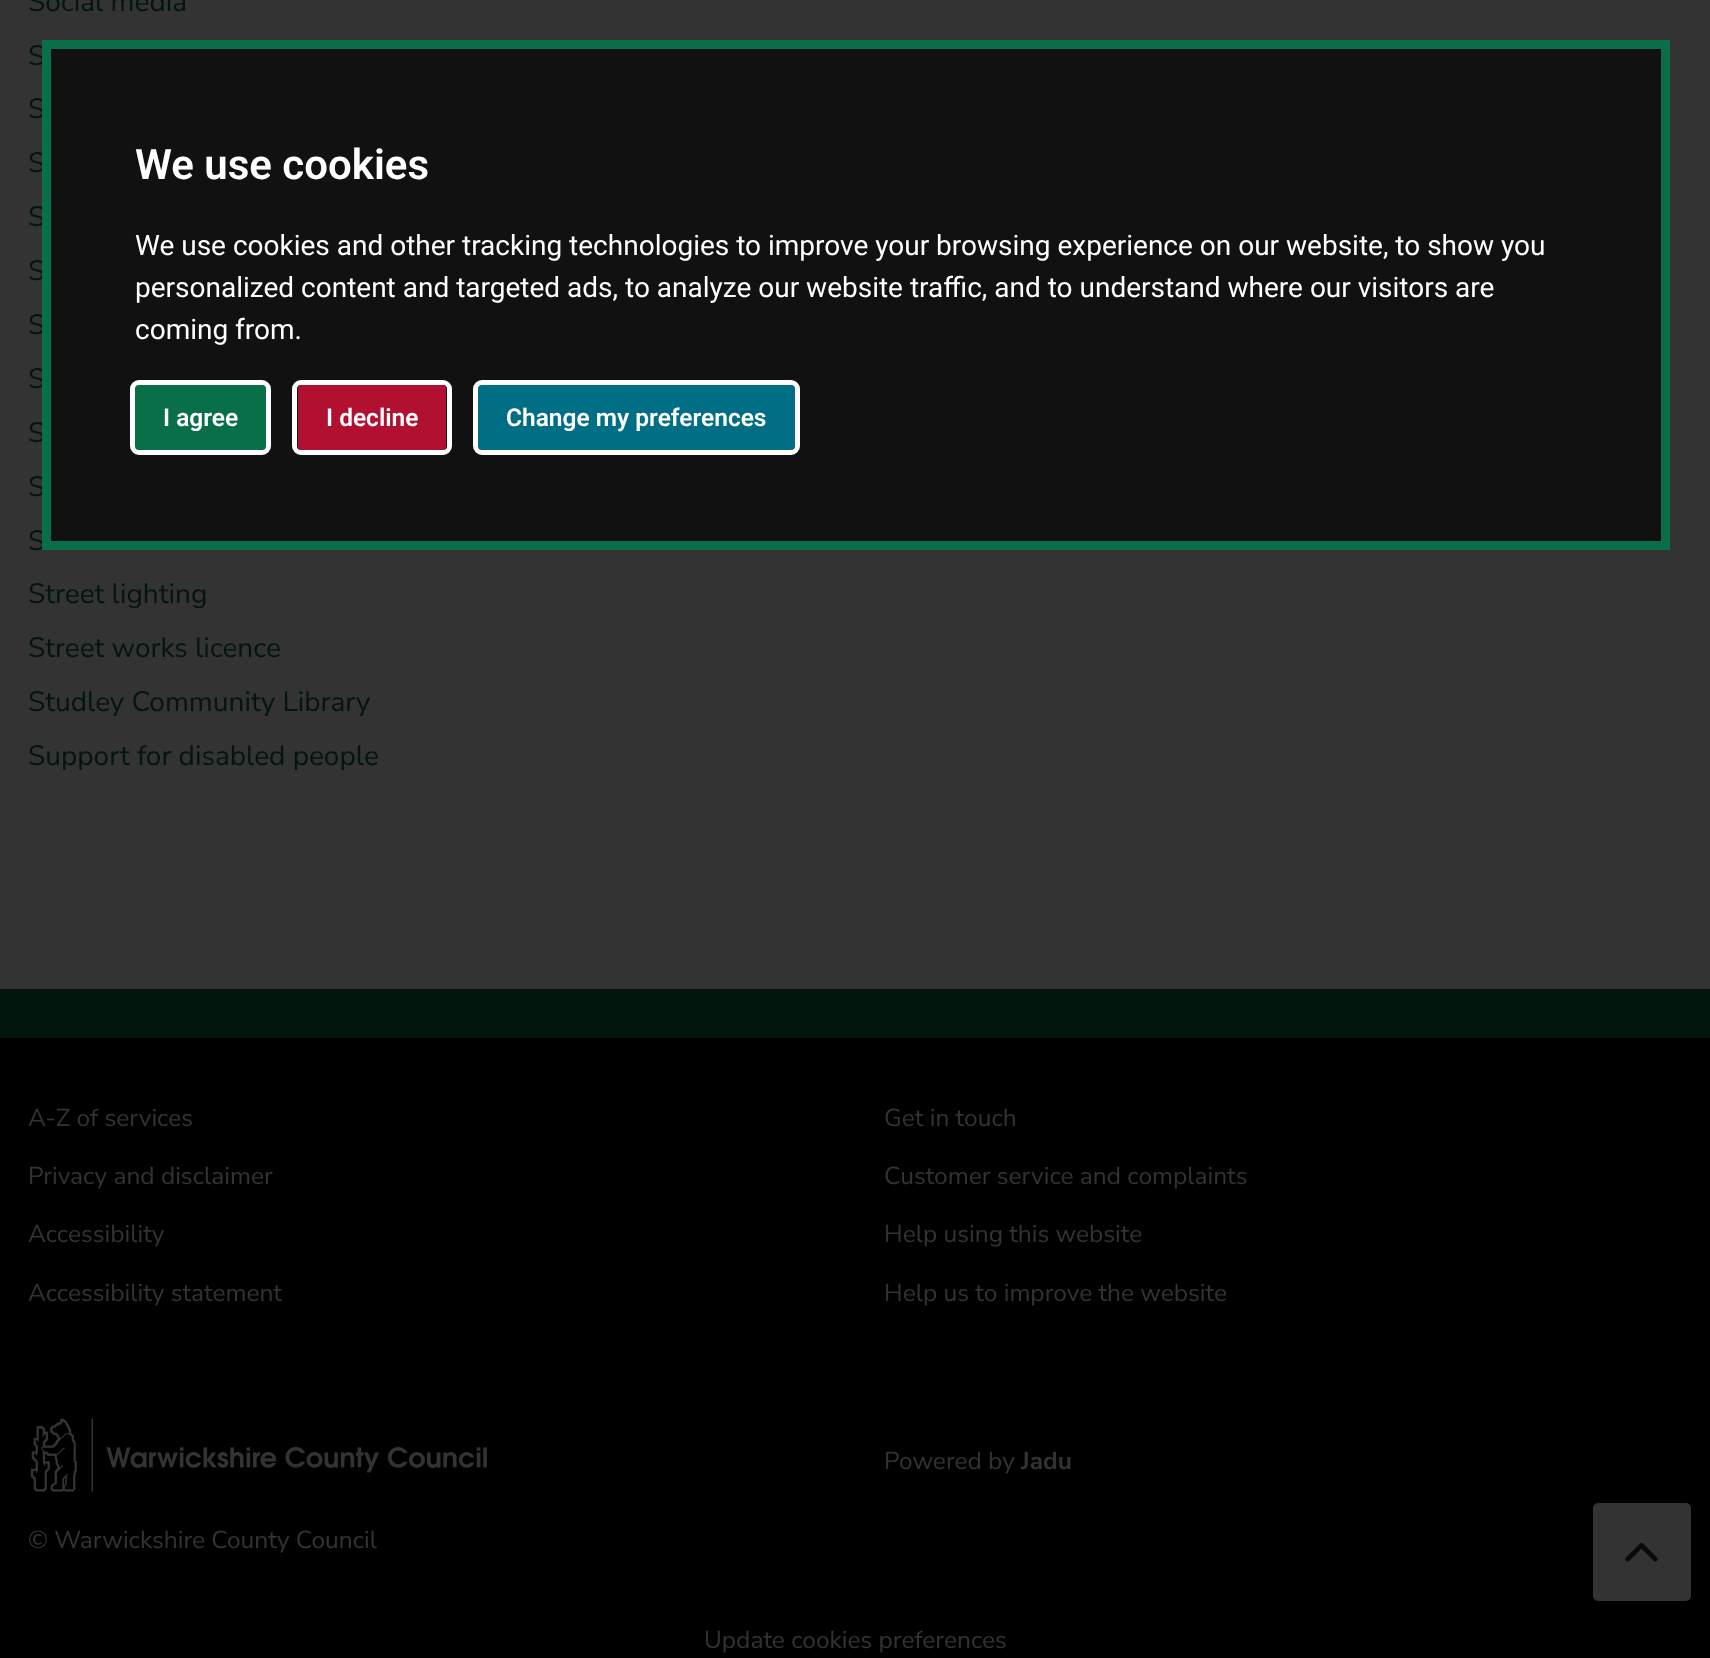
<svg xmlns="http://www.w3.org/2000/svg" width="1710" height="1658">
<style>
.a{font:28px Nunito Sans;fill:#02160e}
.b{font:600 42px Roboto;fill:#fff}
.c{font:28px Roboto;fill:#fff}
.d{font:600 24.5px Roboto;fill:#fff}
.e{font:24.5px Nunito Sans;fill:#333}
.f{font:bold 24.5px Nunito Sans;fill:#333}
</style>
<rect width="100%" height="100%" fill="#333"/>
<path fill="#111" d="M51 49h1610v492H51z"/>
<rect fill="#096f48" x="135" y="385" width="131" height="65" rx="4"/>
<rect fill="none" stroke="#fff" stroke-width="5" x="132.5" y="382.5" width="136" height="70" rx="6.5"/>
<rect fill="#b11030" x="298" y="385" width="148" height="65" rx="4"/>
<rect fill="none" stroke="#fff" stroke-width="5" x="294.5" y="382.5" width="155" height="70" rx="6.5"/>
<rect fill="#006e84" x="478" y="385" width="317" height="65" rx="4"/>
<rect fill="none" stroke="#fff" stroke-width="5" x="475.5" y="382.5" width="322" height="70" rx="6.5"/>
<path fill="#02160e" d="M0 989h1710v49H0z"/>
<path fill="#000" d="M0 1038h1710v620H0z"/>
<image href="1.png" x="30" y="1418" width="457" height="74"/>
<rect fill="#333" stroke="#333" stroke-width="4" x="1595" y="1505" width="94" height="94" rx="3"/>
<image href="2.png" x="1625" y="1543" width="33" height="19"/>
<text class="a" x="28" y="11">Social media</text>
<text class="a" x="28" y="65">S</text>
<text class="a" x="28" y="118">S</text>
<text class="a" x="28" y="172">S</text>
<text class="a" x="28" y="226">S</text>
<text class="a" x="28" y="280">S</text>
<text class="a" x="28" y="334">S</text>
<text class="a" x="28" y="388">S</text>
<text class="a" x="28" y="442">S</text>
<text class="a" x="28" y="496">S</text>
<text class="a" x="28" y="550">S</text>
<text class="a" x="28" y="603">Street lighting</text>
<text class="a" x="28" y="657">Street works licence</text>
<text class="a" x="28" y="711">Studley Community Library</text>
<text class="a" x="28" y="765">Support for disabled people</text>
<path fill="none" stroke="#096f48" stroke-width="9" d="M46.5 44.5h1619v501H46.5z"/>
<text class="b" x="135" y="179">We use cookies</text>
<text class="c" x="135" y="255">We use cookies and other tracking technologies to improve your browsing experience on our website, to show you</text>
<text class="c" x="135" y="297">personalized content and targeted ads, to analyze our website traffic, and to understand where our visitors are</text>
<text class="c" x="135" y="339">coming from.</text>
<text class="d" x="163" y="426">I agree</text>
<text class="d" x="326" y="426">I decline</text>
<text class="d" x="506" y="426">Change my preferences</text>
<text class="e" x="28" y="1126">A-Z of services</text>
<text class="e" x="884" y="1126">Get in touch</text>
<text class="e" x="28" y="1184">Privacy and disclaimer</text>
<text class="e" x="884" y="1184">Customer service and complaints</text>
<text class="e" x="28" y="1242">Accessibility</text>
<text class="e" x="884" y="1242">Help using this website</text>
<text class="e" x="28" y="1301">Accessibility statement</text>
<text class="e" x="884" y="1301">Help us to improve the website</text>
<text class="e" x="884" y="1469">Powered by</text>
<text class="f" x="1021" y="1469">Jadu</text>
<text class="e" x="28" y="1548">© Warwickshire County Council</text>
<text class="e" x="704" y="1648">Update cookies preferences</text>
</svg>
